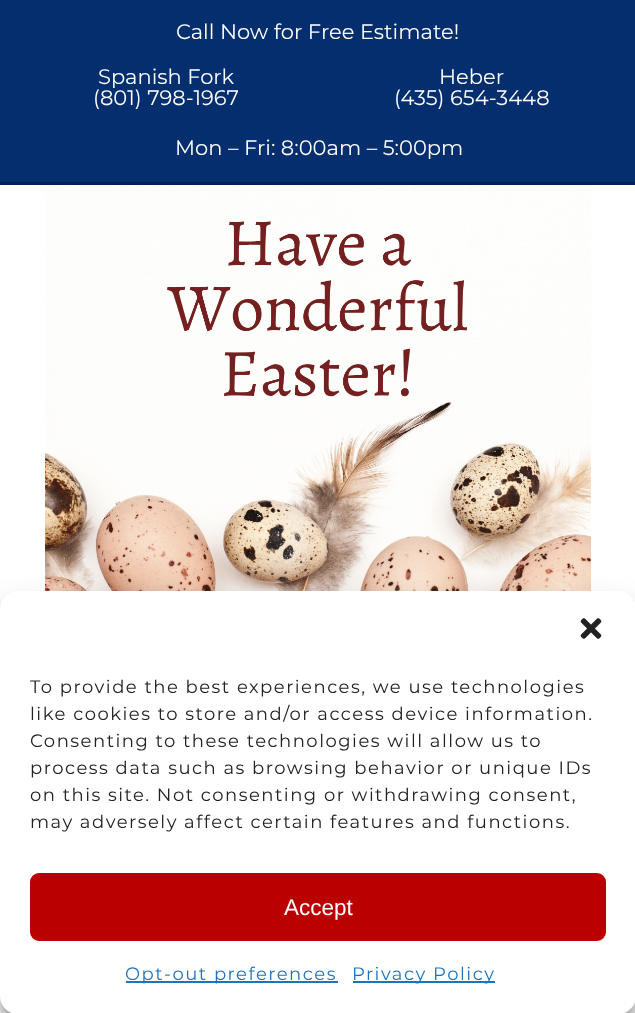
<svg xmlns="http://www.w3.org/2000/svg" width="635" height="1013">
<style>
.a{font:21px Montserrat;fill:#fff}
.b{font:18px Montserrat;letter-spacing:1.5px;fill:#222}
.c{font:22.5px Liberation Sans;fill:#fff}
.d{font:18px Montserrat;letter-spacing:1.5px;fill:#1e73be}
</style>
<rect width="100%" height="100%" fill="#fff"/>
<path fill="#042e6d" d="M0 0h635v182H0z"/>
<path fill="#002256" d="M0 182h635v3H0z"/>
<image href="1.png" x="45" y="185" width="546" height="406"/>
<rect fill="#0000003b" filter="blur(4.5px)" y="600" width="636" height="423" rx="18"/>
<rect fill="#00000030" filter="blur(15px)" y="606" width="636" height="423" rx="18"/>
<rect fill="#fff" y="591" width="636" height="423" rx="18"/>
<image href="2.png" x="580" y="618" width="22" height="21"/>
<rect fill="#ba0001" stroke="#ba0001" stroke-width="2" x="31" y="874" width="574" height="66" rx="8"/>
<path fill="#1e73be" d="M126 981h212v2H126z"/>
<path fill="#1e73be" d="M353 981h142v2H353z"/>
<text class="a" x="176" y="39">Call Now for Free Estimate!</text>
<text class="a" x="98" y="84">Spanish Fork</text>
<text class="a" x="93" y="105">(801) 798-1967</text>
<text class="a" x="439" y="84">Heber</text>
<text class="a" x="394" y="105">(435) 654-3448</text>
<text class="a" x="175" y="155">Mon – Fri: 8:00am – 5:00pm</text>
<text class="b" x="30" y="693">To provide the best experiences, we use technologies</text>
<text class="b" x="30" y="720">like cookies to store and/or access device information.</text>
<text class="b" x="30" y="747">Consenting to these technologies will allow us to</text>
<text class="b" x="30" y="774">process data such as browsing behavior or unique IDs</text>
<text class="b" x="30" y="801">on this site. Not consenting or withdrawing consent,</text>
<text class="b" x="30" y="828">may adversely affect certain features and functions.</text>
<text class="c" x="284" y="915">Accept</text>
<text class="d" x="125" y="980">Opt-out preferences</text>
<text class="d" x="352" y="980">Privacy Policy</text>
</svg>
